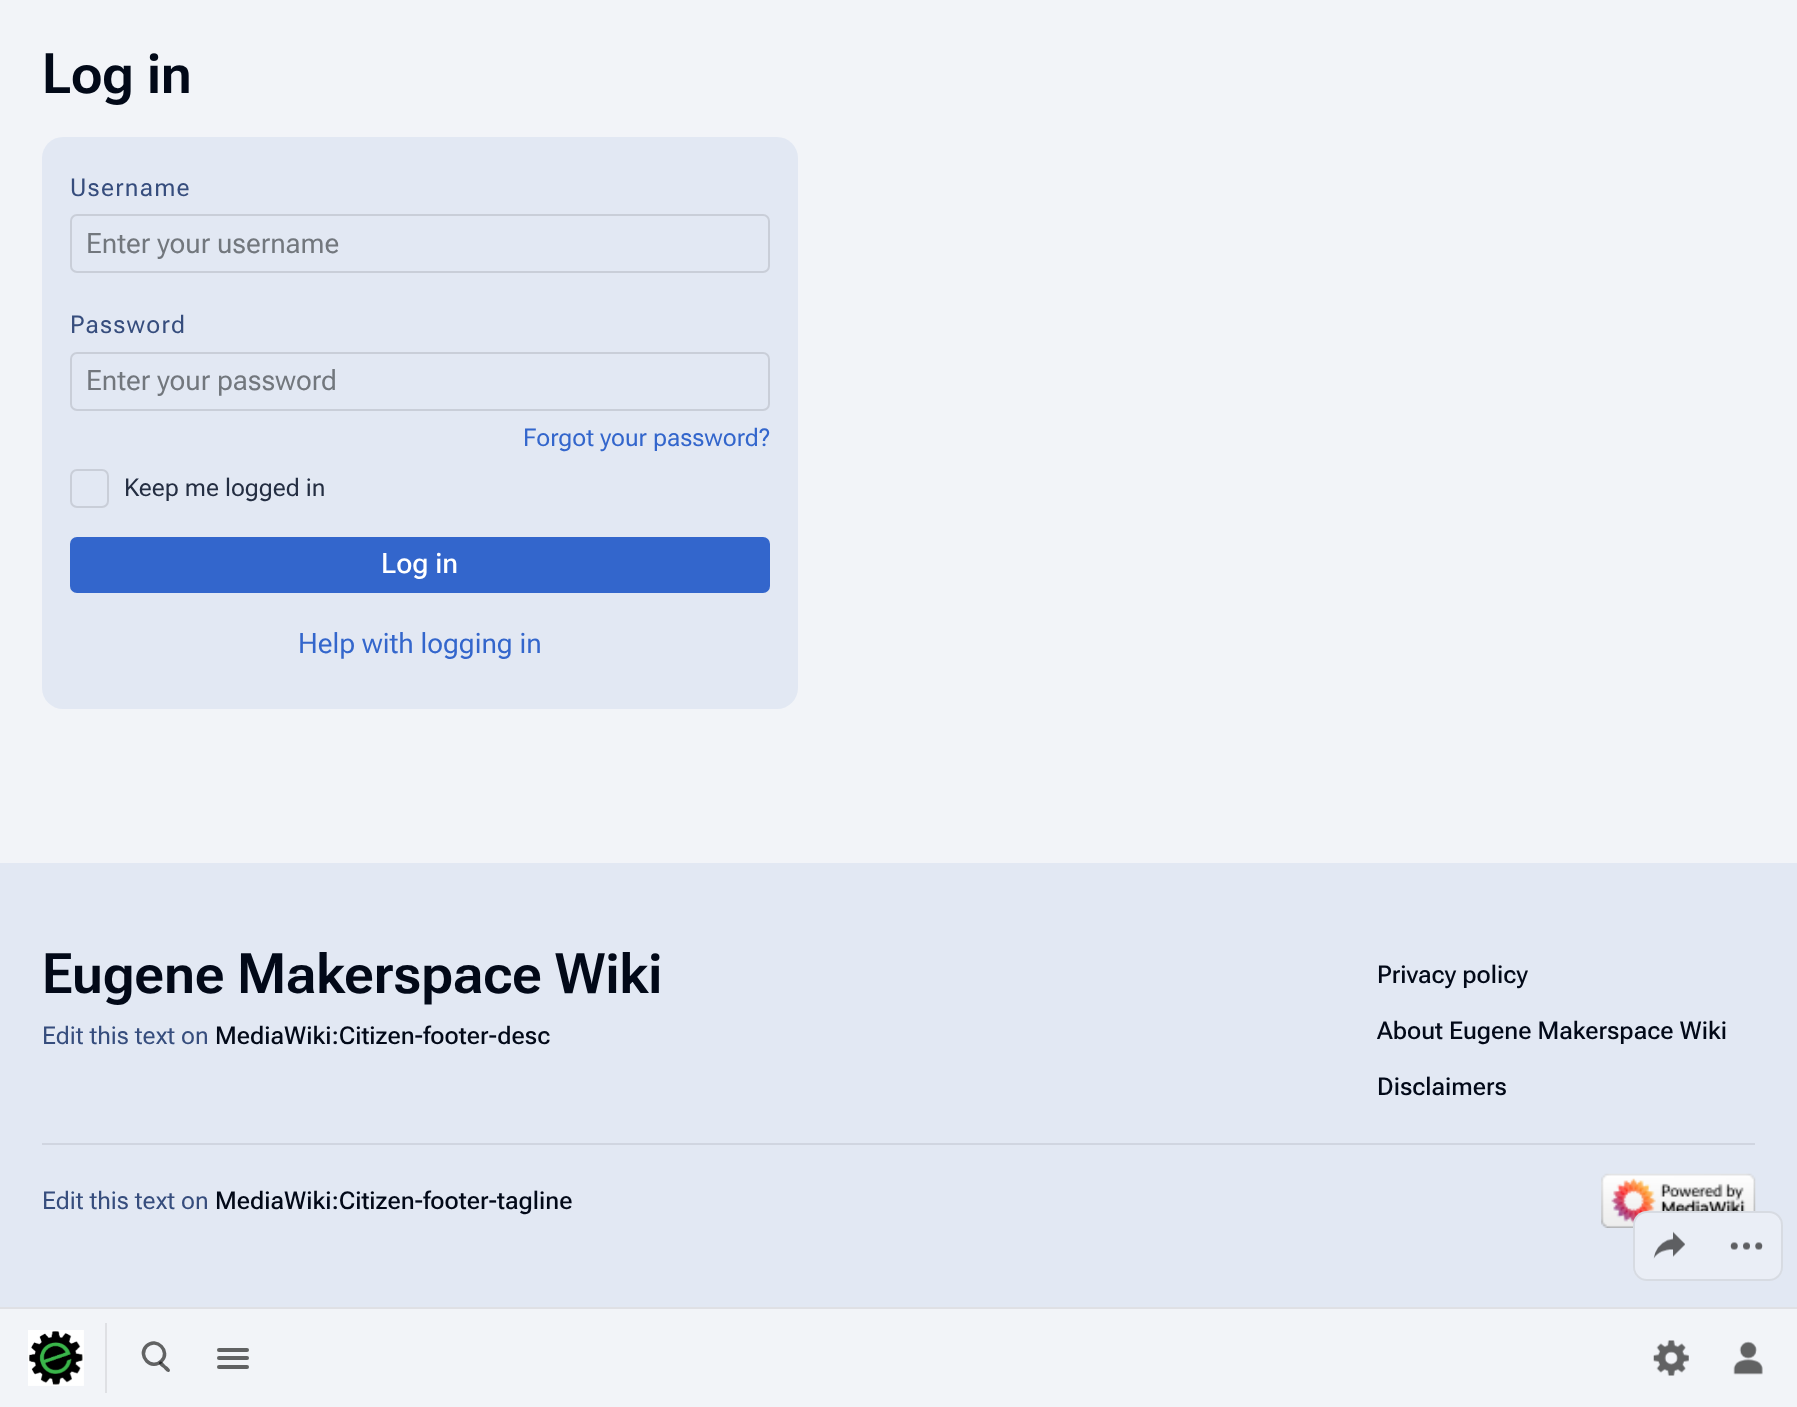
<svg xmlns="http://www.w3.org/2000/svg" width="1797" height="1407">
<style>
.a{font:600 56px Roboto Flex;fill:#020918}
.b{font:24.5px Roboto Flex;letter-spacing:1.25px;fill:#364d7d}
.c{font:28px 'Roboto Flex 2';fill:#72777d}
.d{font:24.5px Roboto Flex;fill:#36c}
.e{font:24.5px Roboto Flex;fill:#242e42}
.f{font:500 28px Roboto Flex;fill:#fff}
.g{font:28px 'Roboto Flex 2';fill:#36c}
.h{font:24.5px Roboto Flex;fill:#364d7d}
.i{font:500 24.5px 'Roboto Flex 2';fill:#020918}
</style>
<rect width="100%" height="100%" fill="#f2f4f8"/>
<path fill="#e2e8f3" d="M0 863h1797v444H0z"/>
<image href="3.png" x="1601" y="1173" width="155" height="55"/>
<rect fill="#eaeef6" x="1633" y="1211" width="150" height="70" rx="14"/>
<rect fill="none" stroke="#00000014" stroke-width="2" x="1634" y="1212" width="148" height="68" rx="13"/>
<image href="1.png" x="1653" y="1231" width="32" height="28"/>
<image href="2.png" x="1730" y="1242" width="33" height="8"/>
<rect fill="#e2e8f3" x="42" y="137" width="756" height="572" rx="21"/>
<rect fill="none" stroke="#c9ced8" stroke-width="2" x="71" y="215" width="698" height="57" rx="6"/>
<rect fill="none" stroke="#c9ced8" stroke-width="2" x="71" y="353" width="698" height="57" rx="6"/>
<rect fill="none" stroke="#c9ced8" stroke-width="2" x="71" y="470" width="37" height="37" rx="6"/>
<rect fill="#36c" stroke="#36c" stroke-width="2" x="71" y="538" width="698" height="54" rx="6"/>
<path fill="#d0d5e0" d="M42 1143h1713v2H42z"/>
<path fill="#dfe0e4" d="M0 1307h1797v2H0z"/>
<path fill="#dfe0e4" d="M105 1323h2v70H105z"/>
<image href="4.png" x="28" y="1330" width="56" height="56"/>
<path fill="#616263" d="M159.5 1362c2-2 5 2.5 6 3.5c1.5 1 6 4 4 6c-2 2-5-2.5-6-3.5c-1.5-1-6-4-4-6z"/>
<path fill="none" stroke="#00000099" stroke-width="3.5" d="M146.5 1346c10-9.5 24.5 5.5 15 15c-10 10-24.5-5-15-15z"/>
<rect fill="#616263" x="217" y="1348" width="32" height="4" rx="2"/>
<rect fill="#616263" x="217" y="1356" width="32" height="4" rx="2"/>
<rect fill="#616263" x="217" y="1365" width="32" height="4" rx="2"/>
<image href="5.png" x="1653" y="1340" width="36" height="36"/>
<image href="6.png" x="1733" y="1341" width="30" height="34"/>
<text class="a" x="42" y="93">Log in</text>
<text class="b" x="70" y="196">Username</text>
<text class="c" x="86" y="253">Enter your username</text>
<text class="b" x="70" y="333">Password</text>
<text class="c" x="86" y="390">Enter your password</text>
<text class="d" x="523" y="446">Forgot your password?</text>
<text class="e" x="124" y="496">Keep me logged in</text>
<text class="f" x="381" y="573">Log in</text>
<text class="g" x="298" y="653">Help with logging in</text>
<text class="a" x="42" y="993">Eugene Makerspace Wiki</text>
<text class="h" x="42" y="1044">Edit this text on</text>
<text class="i" x="215" y="1044">MediaWiki:Citizen-footer-desc</text>
<text class="i" x="1377" y="983">Privacy policy</text>
<text class="i" x="1377" y="1039">About Eugene Makerspace Wiki</text>
<text class="i" x="1377" y="1095">Disclaimers</text>
<text class="h" x="42" y="1209">Edit this text on</text>
<text class="i" x="215" y="1209">MediaWiki:Citizen-footer-tagline</text>
</svg>
